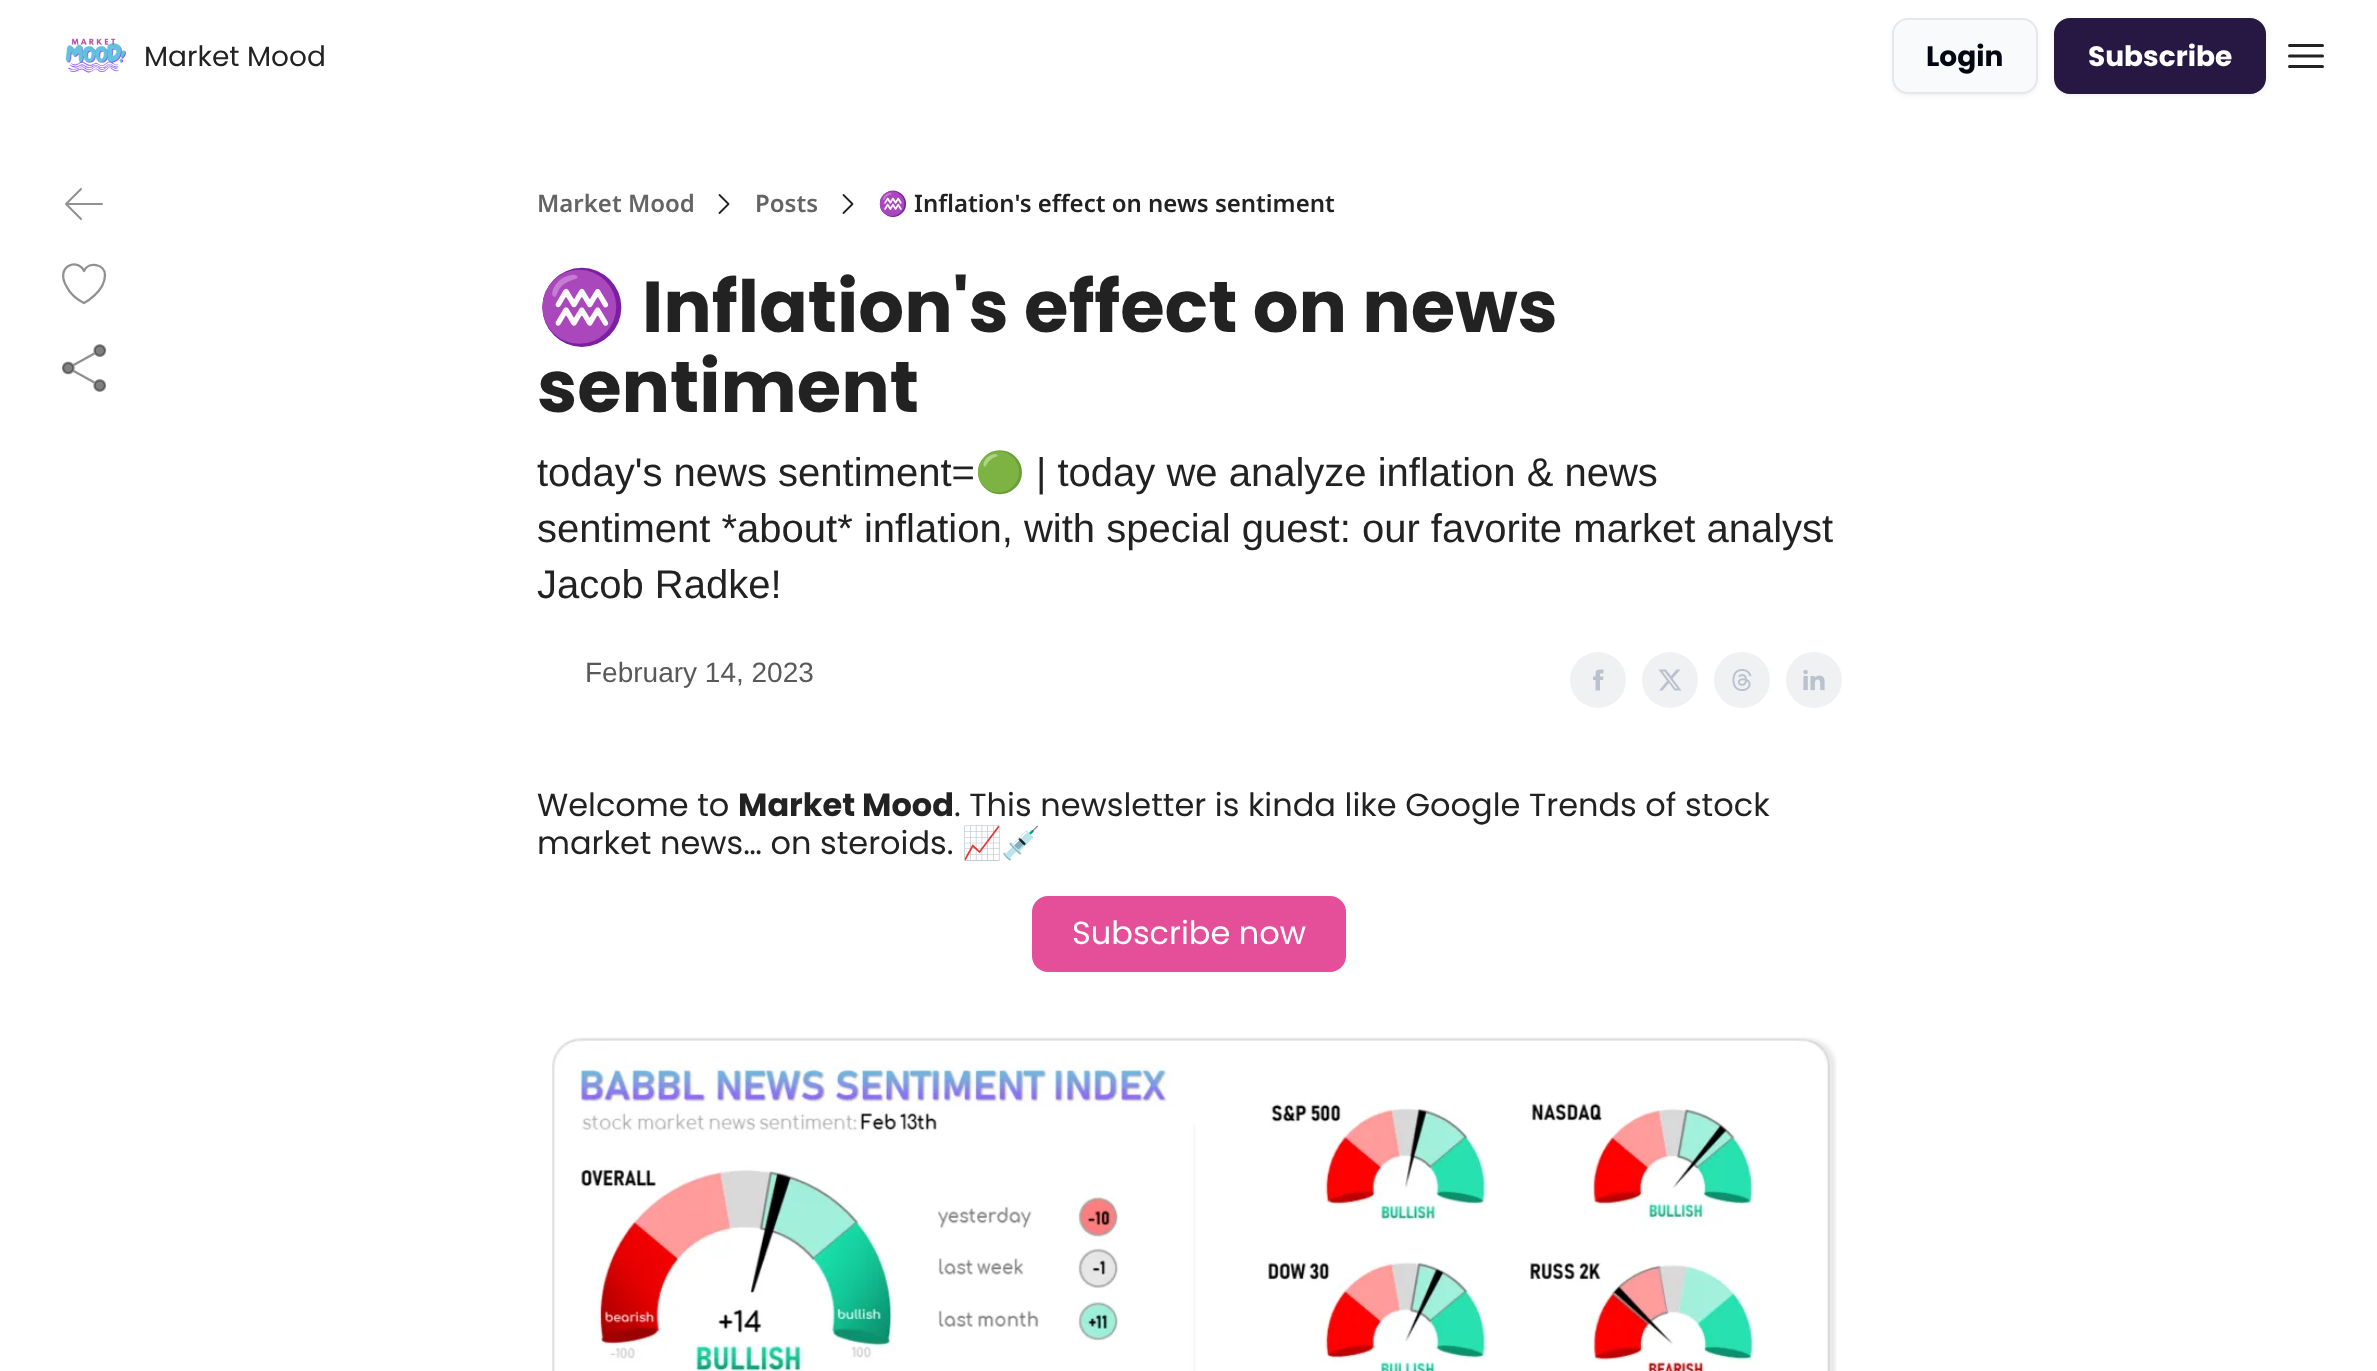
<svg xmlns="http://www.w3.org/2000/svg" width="2377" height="1371">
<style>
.a{font:28px Poppins;fill:#222}
.b{font:bold 28px Poppins;fill:#030712}
.c{font:bold 28px Poppins;fill:#fff}
.d{font:600 24px Noto Sans;fill:#646464}
.e{font:24px Noto Color Emoji;fill:#222}
.f{font:600 24px Noto Sans;fill:#222}
.g{font:bold 72px Noto Color Emoji;fill:#222}
.h{font:bold 72px Poppins;fill:#222}
.i{font:40px Liberation Sans;fill:#222}
.j{font:40px Noto Color Emoji;fill:#222}
.k{font:28px Liberation Sans;fill:#595959}
.l{font:32px Poppins;fill:#222}
.m{font:bold 32px Poppins;fill:#222}
.n{font:32px Noto Color Emoji;fill:#222}
.o{font:32px Poppins;fill:#fff}
</style>
<rect width="100%" height="100%" fill="#fff"/>
<image href="1.png" x="65" y="38" width="62" height="35"/>
<rect fill="#0000000d" filter="blur(2px)" x="1892" y="20" width="146" height="76" rx="16"/>
<rect fill="#f9fafb" stroke="#e5e7eb" stroke-width="2" x="1893" y="19" width="144" height="74" rx="15"/>
<rect fill="#0000000d" filter="blur(2px)" x="2054" y="20" width="212" height="76" rx="16"/>
<rect fill="#271843" stroke="#271843" stroke-width="2" x="2055" y="19" width="210" height="74" rx="15"/>
<path fill="none" stroke="#222" stroke-width="3" stroke-linecap="round" stroke-linejoin="round" d="M2289.5 45.5h33m-33 10.5h33m-33 10.5h33"/>
<path fill="none" stroke="#919191" stroke-width="2" stroke-linecap="round" stroke-linejoin="round" d="M81 219l-15-15m0 0l15-15m-15 15h36"/>
<path fill="none" stroke="#919191" stroke-width="2.3" stroke-linecap="round" stroke-linejoin="round" d="M105 275c0-11-16.5-14-21-4c-6-13.5-29.5-5-17.5 15.5c3.5 7 10.5 13 17.5 16.5c0 0 21-11 21-28z"/>
<image href="2.png" x="61" y="344" width="46" height="48"/>
<path fill="none" stroke="#222" stroke-width="1.8" stroke-linecap="round" stroke-linejoin="round" d="M719.5 195l9 9l-9 9"/>
<path fill="none" stroke="#222" stroke-width="1.8" stroke-linecap="round" stroke-linejoin="round" d="M843.5 195l9 9l-9 9"/>
<circle fill="#f0f1f3" cx="1598" cy="680" r="28"/>
<path fill="#bac2ce" d="M1595.5 676.5h-2.5v3.5h2.5v10.5h4.5v-10.5h3l.5-3.5h-3.5c0-3.5 0-3 3.5-3v-4c-7 0-8-.5-8 7z"/>
<circle fill="#f0f1f3" cx="1670" cy="680" r="28"/>
<path fill="#bac2ce" d="M1676.5 669.5h4l-8 9l9 12h-7l-5.5-7.5l-6.5 7.5h-3.5l8-9.5l-8.5-11.5h7.5l5 6.5zm-1 19h2l-13-17h-2z"/>
<image href="3.png" x="1714" y="652" width="56" height="56"/>
<image href="4.png" x="1786" y="652" width="56" height="56"/>
<rect fill="#e54f9a" x="1032" y="896" width="314" height="76" rx="16"/>
<image href="5.png" x="552" y="1037" width="1285" height="334"/>
<text class="a" x="144" y="66">Market Mood</text>
<text class="b" x="1926" y="66">Login</text>
<text class="c" x="2088" y="66">Subscribe</text>
<text class="d" x="537" y="212">Market Mood</text>
<text class="d" x="755" y="212">Posts</text>
<text class="e" x="878" y="212">♒</text>
<text class="f" x="914" y="212">Inflation's effect on news sentiment</text>
<text class="g" x="537" y="332">♒</text>
<text class="h" x="642" y="332">Inflation's effect on news</text>
<text class="h" x="537" y="412">sentiment</text>
<text class="i" x="537" y="486">today's news sentiment=</text>
<text class="j" x="975" y="486">🟢</text>
<text class="i" x="1036" y="486">| today we analyze inflation &amp; news</text>
<text class="i" x="537" y="542">sentiment *about* inflation, with special guest: our favorite market analyst</text>
<text class="i" x="537" y="598">Jacob Radke!</text>
<text class="k" x="585" y="682">February 14, 2023</text>
<text class="l" x="537" y="816">Welcome to</text>
<text class="m" x="738" y="816">Market Mood</text>
<text class="l" x="954" y="816">. This newsletter is kinda like Google Trends of stock</text>
<text class="l" x="537" y="854">market news… on steroids.</text>
<text class="n" x="962" y="854">📈💉</text>
<text class="o" x="1072" y="944">Subscribe now</text>
</svg>
